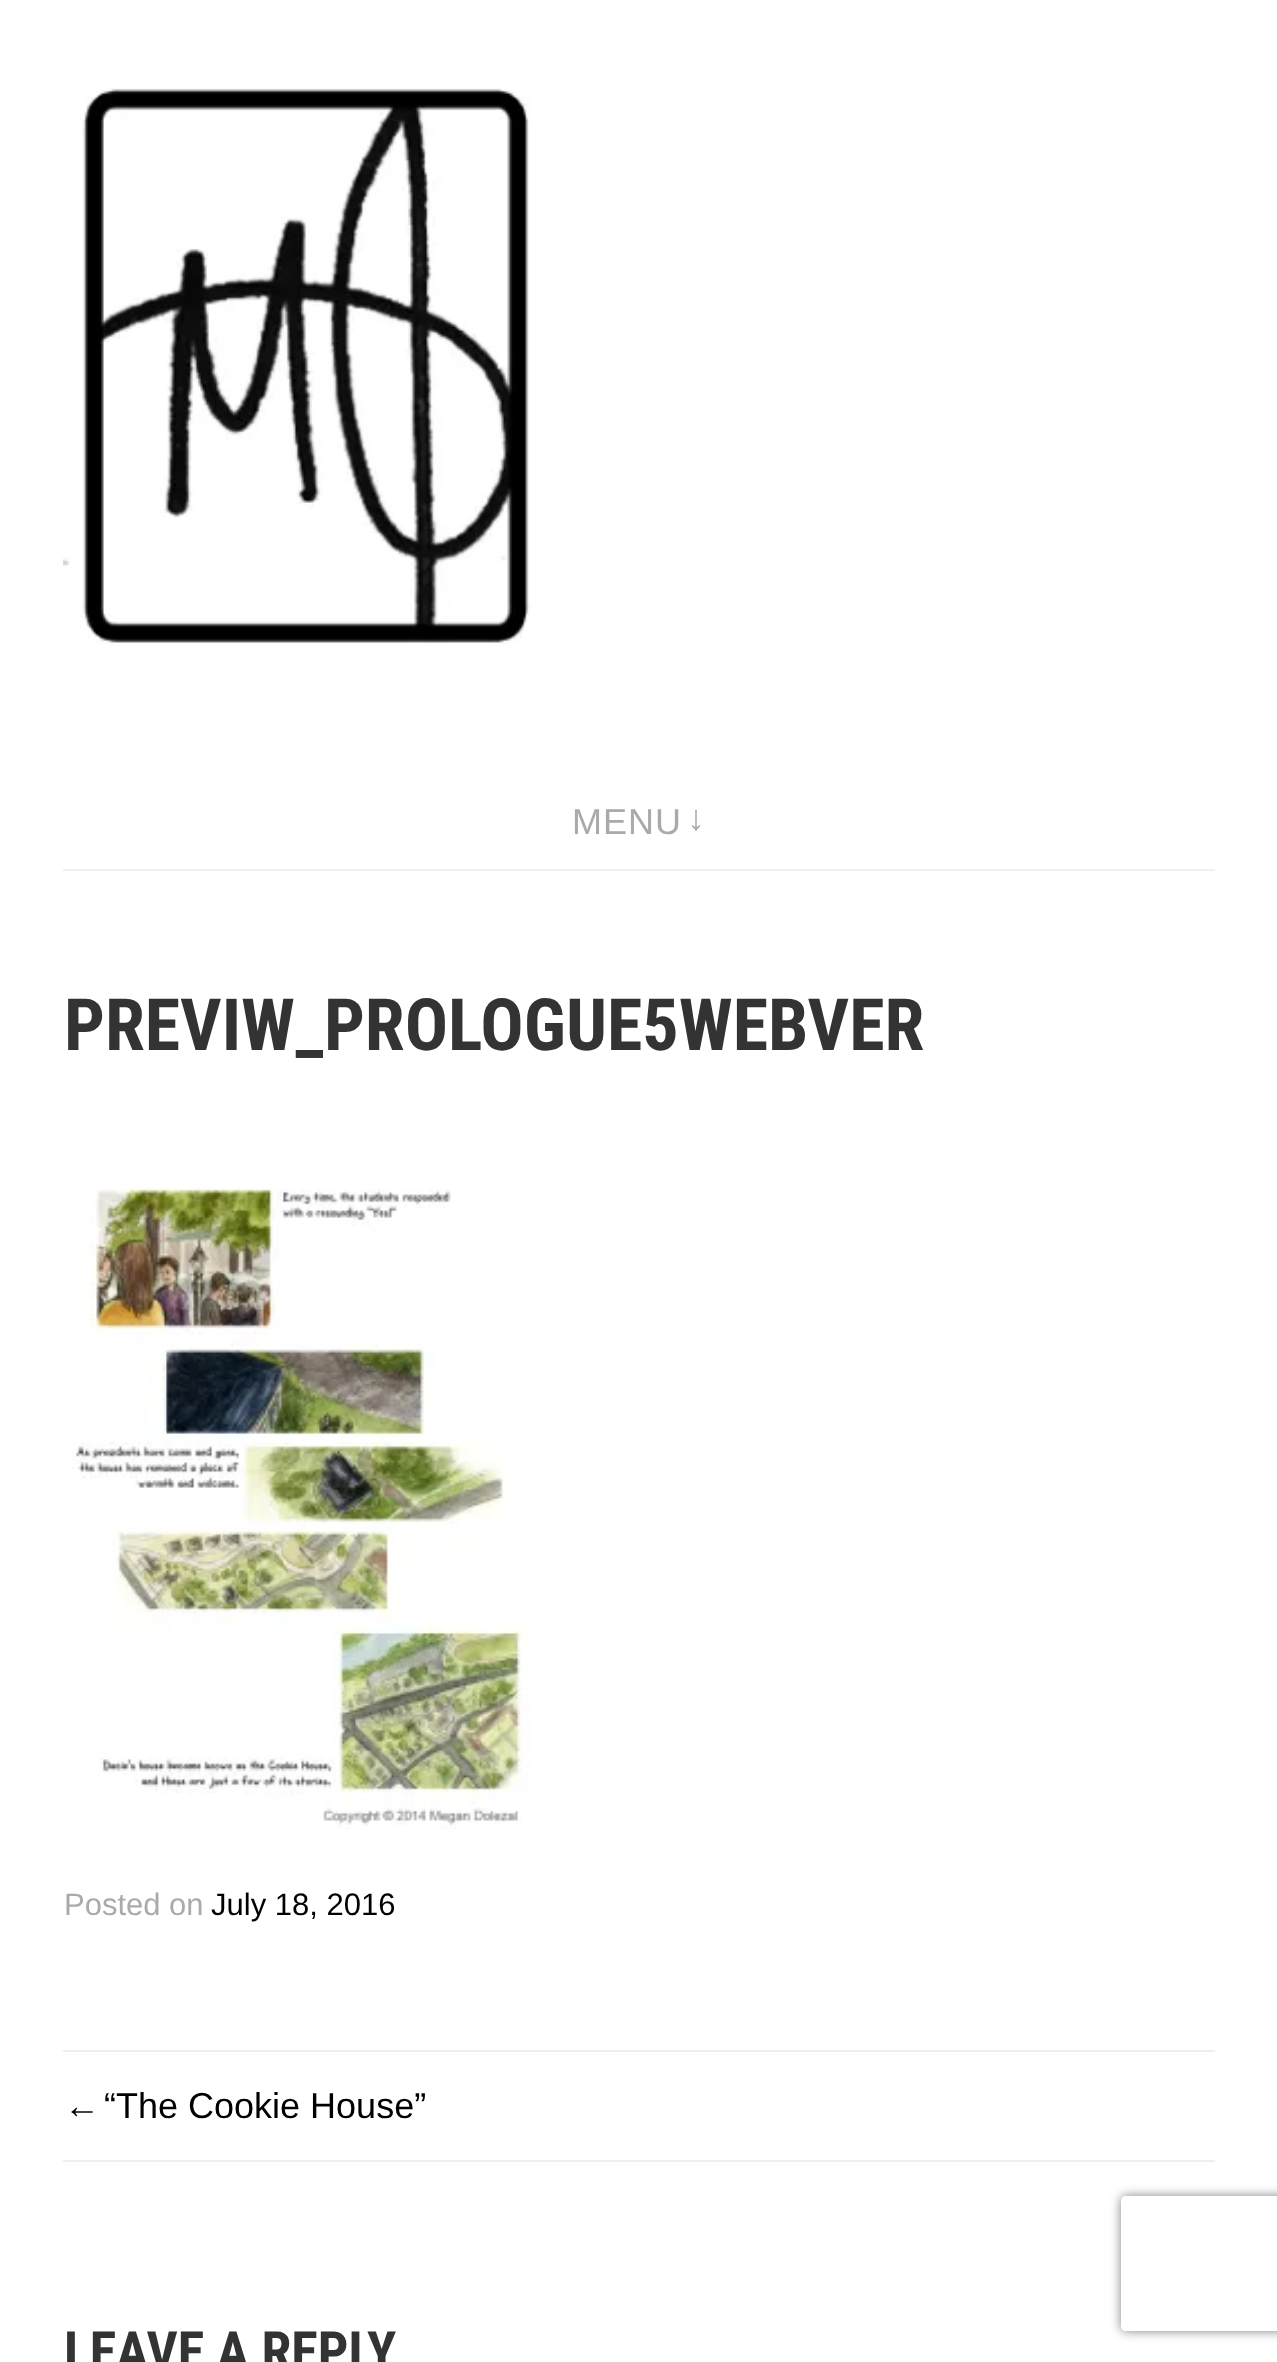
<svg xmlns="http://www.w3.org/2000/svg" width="1277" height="2362">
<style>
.a{font:36px Arimo;letter-spacing:1px;fill:#aaa}
.b{font:bold 72px Roboto Condensed;fill:#333}
.c{font:31px Arimo;fill:#aaa}
.d{font:31px Arimo;fill:#000}
.e{font:36px Liberation Sans;fill:#000}
.f{font:36px Arimo;fill:#000}
.g{font:bold 54px Roboto Condensed;fill:#333}
</style>
<defs>
<clipPath id="clip1"><path d="M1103 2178h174v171h-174zm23 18h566c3 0 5 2 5 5v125c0 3-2 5-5 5h-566c-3 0-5-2-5-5v-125c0-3 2-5 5-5z" clip-rule="evenodd"/></clipPath>
</defs>
<rect width="100%" height="100%" fill="#fff"/>
<image href="1.png" x="63" y="88" width="468" height="558"/>
<path fill="#f0f0f0" d="M63 869h1152v2H63z"/>
<image href="2.png" x="72" y="1187" width="459" height="642"/>
<path fill="#eee" d="M63 2050h1152v2H63z"/>
<path fill="#eee" d="M63 2160h1152v2H63z"/>
<g clip-path="url(#clip1)">
<rect fill="#808080" filter="blur(5.5px)" x="1121" y="2196" width="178" height="135" rx="5"/>
</g>
<text class="a" x="572" y="834">MENU</text>
<text class="a" x="687" y="830">↓</text>
<text class="b" x="64" y="1050">PREVIW_PROLOGUE5WEBVER</text>
<text class="c" x="64" y="1915">Posted on</text>
<text class="d" x="211" y="1915">July 18, 2016</text>
<text class="e" x="64" y="2118">←</text>
<text class="f" x="104" y="2118">“The Cookie House”</text>
<text class="g" x="64" y="2370">LEAVE A REPLY</text>
</svg>
